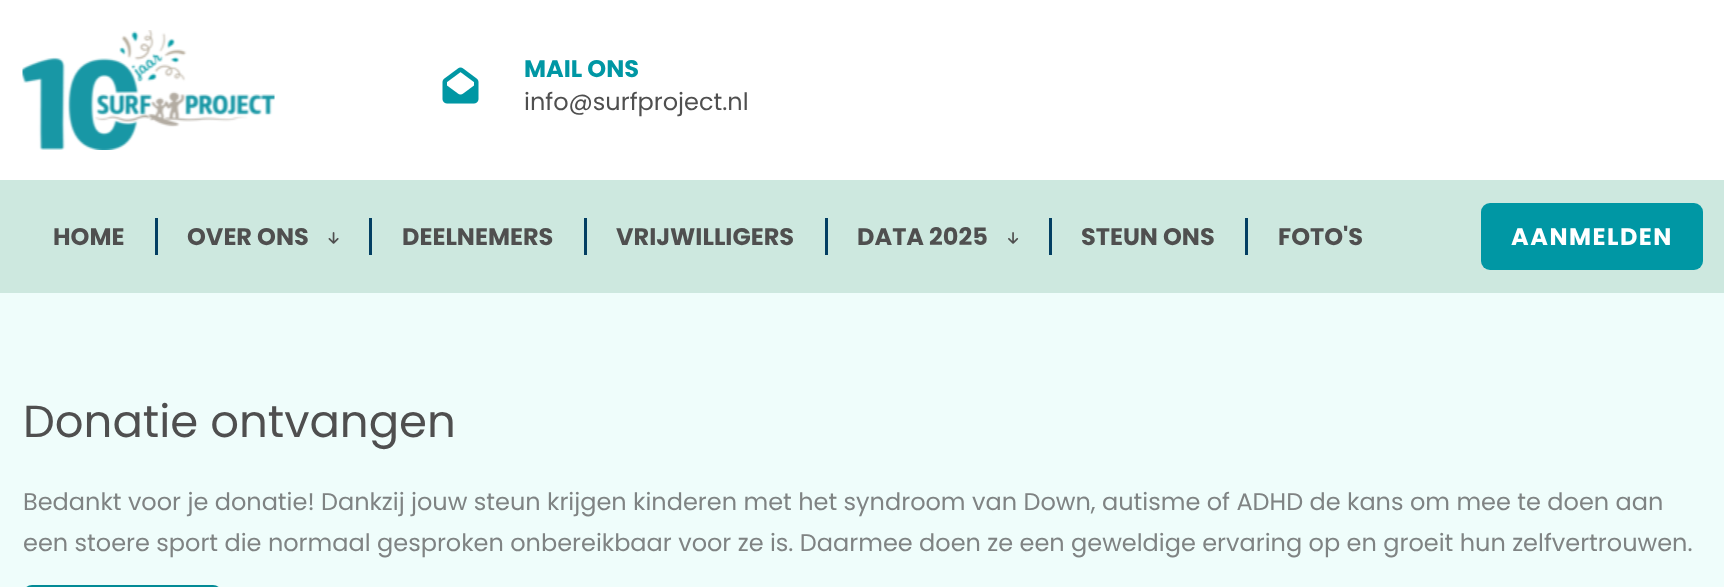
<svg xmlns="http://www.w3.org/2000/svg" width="1724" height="587">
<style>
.a{font:bold 24px Poppins;fill:#0097a4}
.b{font:24px Poppins;fill:#4f4f4f}
.c{font:bold 24px Poppins;fill:#4f4f4f}
.d{font:bold 24px Poppins;letter-spacing:1.5px;fill:#fff}
.e{font:45px Poppins;fill:#4f4f4f}
.f{font:24px Poppins;fill:#7f8383}
</style>
<defs>
<clipPath id="clip1"><rect x="23" y="585" width="199" height="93" rx="9"/></clipPath>
</defs>
<rect width="100%" height="100%" fill="#effdfb"/>
<path fill="#fff" d="M0 0h1724v180H0z"/>
<image href="1.png" x="22" y="30" width="253" height="120"/>
<image href="2.png" x="442" y="67" width="37" height="37"/>
<path fill="#cde8df" d="M0 180h1724v113H0z"/>
<path fill="#033f63" d="M155 218h3v37H155z"/>
<image href="3.png" x="328" y="232" width="11" height="12"/>
<path fill="#033f63" d="M369 218h3v37H369z"/>
<path fill="#033f63" d="M584 218h3v37H584z"/>
<path fill="#033f63" d="M825 218h3v37H825z"/>
<image href="4.png" x="1008" y="232" width="11" height="12"/>
<path fill="#033f63" d="M1049 218h3v37H1049z"/>
<path fill="#033f63" d="M1245 218h3v37H1245z"/>
<rect fill="#0097a4" x="1481" y="203" width="222" height="67" rx="9"/>
<g clip-path="url(#clip1)">
<path fill="#028b96" d="M23 585h199v2H23z"/>
</g>
<text class="a" x="524" y="77">MAIL ONS</text>
<text class="b" x="524" y="110">info@surfproject.nl</text>
<text class="c" x="53" y="245">HOME</text>
<text class="c" x="187" y="245">OVER ONS</text>
<text class="c" x="402" y="245">DEELNEMERS</text>
<text class="c" x="616" y="245">VRIJWILLIGERS</text>
<text class="c" x="857" y="245">DATA 2025</text>
<text class="c" x="1081" y="245">STEUN ONS</text>
<text class="c" x="1278" y="245">FOTO'S</text>
<text class="d" x="1511" y="245">AANMELDEN</text>
<text class="e" x="23" y="437">Donatie ontvangen</text>
<text class="f" x="23" y="510">Bedankt voor je donatie! Dankzij jouw steun krijgen kinderen met het syndroom van Down, autisme of ADHD de kans om mee te doen aan</text>
<text class="f" x="23" y="551">een stoere sport die normaal gesproken onbereikbaar voor ze is. Daarmee doen ze een geweldige ervaring op en groeit hun zelfvertrouwen.</text>
</svg>
